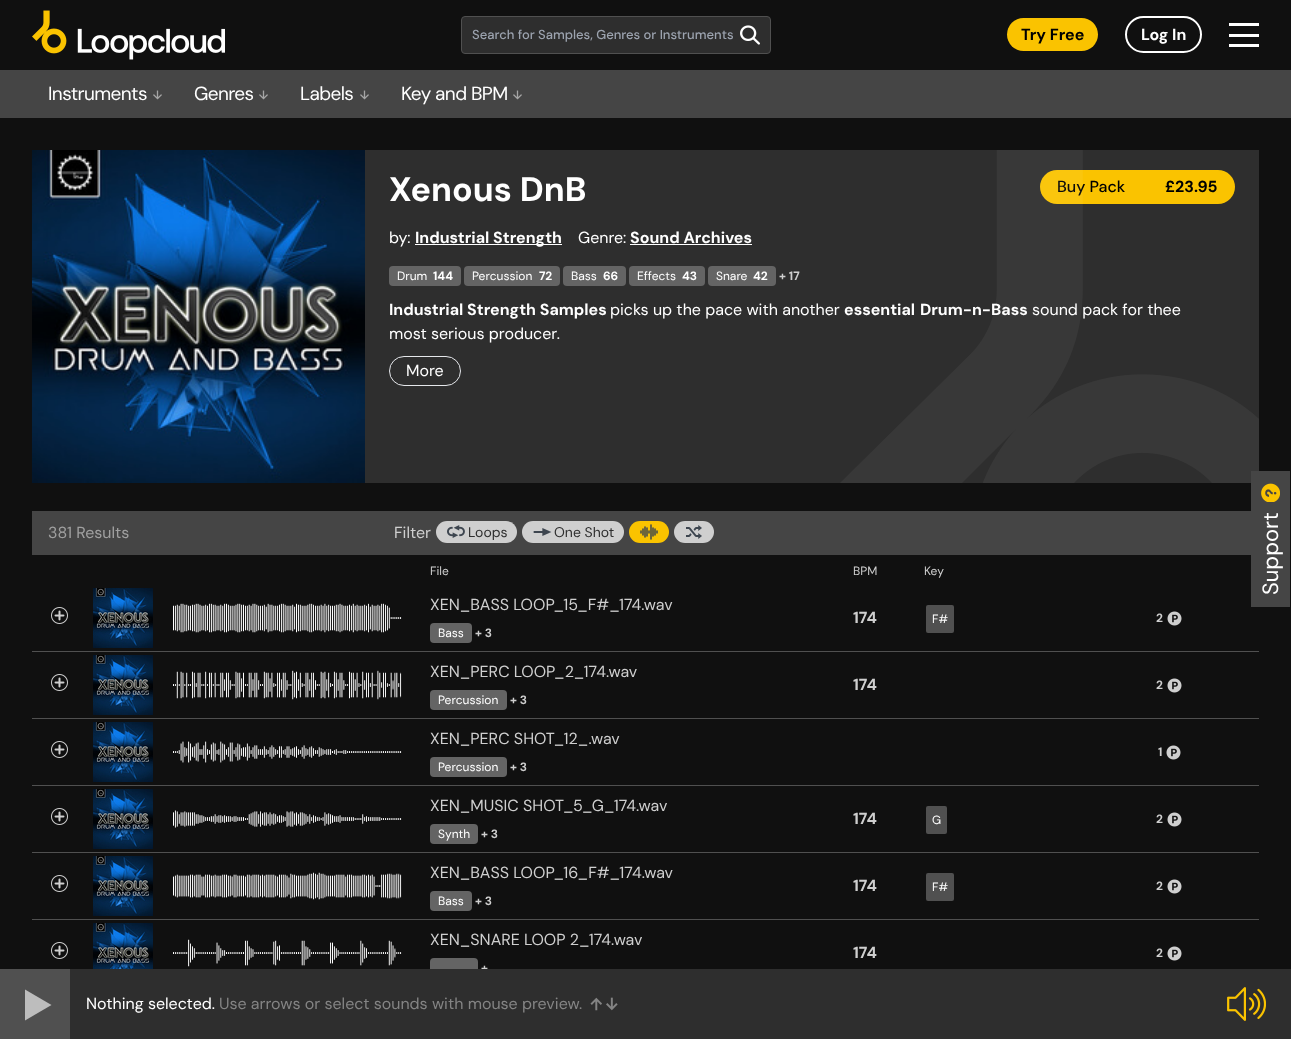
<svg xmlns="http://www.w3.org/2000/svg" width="1291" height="1039">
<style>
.a{font:500 13px DM Sans;fill:#9ca3af}
.b{font:bold 16px DM Sans;fill:#000}
.c{font:bold 16px DM Sans;fill:#fff}
.d{font:19px DM Sans;letter-spacing:-0.6px;fill:#fff}
.e{font:bold 34px DM Sans;fill:#fff}
.f{font:500 16px DM Sans;fill:#000}
.g{font:16px DM Sans;fill:#fff}
.h{font:12px DM Sans;fill:#fff}
.i{font:bold 12px DM Sans;fill:#fff}
.j{font:bold 12px DM Sans;fill:#cfcfcf}
.k{font:16px DM Sans;fill:#a0a0a0}
.l{font:16px DM Sans;fill:#cfcfcf}
.m{font:14px DM Sans;fill:#2e2e2e}
.n{font:12px DM Sans;fill:#cfcfcf}
.o{font:bold 16px DM Sans;fill:#cfcfcf}
.p{font:22px DM Sans;fill:#fff}
.q{font:16px DM Sans;fill:#848484}
</style>
<rect width="100%" height="100%" fill="#101010"/>
<image href="1.png" x="32" y="10" width="193" height="50"/>
<rect fill="#2e2e2e" stroke="#505050" x="461.5" y="16.5" width="309" height="37" rx="3.5"/>
<image href="2.png" x="740" y="25" width="20" height="20"/>
<rect fill="#fac300" x="1007" y="18" width="91" height="33" rx="16.5"/>
<rect fill="none" stroke="#fff" stroke-width="2" x="1126" y="17" width="75" height="35" rx="17.5"/>
<path fill="#fff" d="M1229 23h30v3H1229z"/>
<path fill="#fff" d="M1229 34h30v3H1229z"/>
<path fill="#fff" d="M1229 44h30v3H1229z"/>
<path fill="#454545" d="M0 70h1291v48H0z"/>
<image href="3.png" x="153" y="90" width="9" height="10"/>
<image href="3.png" x="259" y="90" width="9" height="10"/>
<image href="3.png" x="360" y="90" width="9" height="10"/>
<image href="3.png" x="513" y="90" width="9" height="10"/>
<path fill="#2e2e2e" d="M365 150h894v333H365z"/>
<image href="4.png" x="32" y="150" width="333" height="333"/>
<rect fill="#fac300" x="1040" y="170" width="195" height="34" rx="17"/>
<path fill="#fff" d="M415 244h147v1H415z"/>
<path fill="#fff" d="M630 244h122v1H630z"/>
<rect fill="#646464" x="389" y="266" width="72" height="20" rx="4"/>
<rect fill="#646464" x="464" y="266" width="96" height="20" rx="4"/>
<rect fill="#646464" x="563" y="266" width="63" height="20" rx="4"/>
<rect fill="#646464" x="629" y="266" width="76" height="20" rx="4"/>
<rect fill="#646464" x="708" y="266" width="68" height="20" rx="4"/>
<rect fill="none" stroke="#e5e7eb" x="389.5" y="356.5" width="71" height="29" rx="14.5"/>
<path fill="#454545" d="M32 511h1219v44H32z"/>
<rect fill="#cfcfcf" x="436" y="521" width="81" height="22" rx="11"/>
<image href="6.png" x="447" y="525" width="18" height="13"/>
<rect fill="#cfcfcf" x="522" y="521" width="102" height="22" rx="11"/>
<image href="7.png" x="533" y="528" width="19" height="8"/>
<rect fill="#fac300" x="629" y="521" width="40" height="22" rx="11"/>
<image href="8.png" x="640" y="524" width="18" height="16"/>
<rect fill="#cfcfcf" x="674" y="521" width="40" height="22" rx="11"/>
<image href="9.png" x="686" y="525" width="16" height="14"/>
<path fill="#505050" d="M32 651h1227v1H32z"/>
<image href="10.png" x="51" y="607" width="17" height="17"/>
<image href="11.png" x="93" y="588" width="60" height="60"/>
<image href="12.png" x="173" y="603" width="229" height="30"/>
<rect fill="#646464" x="430" y="623" width="42" height="20" rx="4"/>
<rect fill="#505050" x="926" y="605" width="28" height="28" rx="2"/>
<image href="13.png" x="1167" y="611" width="15" height="15"/>
<path fill="#505050" d="M32 718h1227v1H32z"/>
<image href="10.png" x="51" y="674" width="17" height="17"/>
<image href="11.png" x="93" y="655" width="60" height="60"/>
<image href="14.png" x="173" y="670" width="229" height="30"/>
<rect fill="#646464" x="430" y="690" width="77" height="20" rx="4"/>
<image href="13.png" x="1167" y="678" width="15" height="15"/>
<path fill="#505050" d="M32 785h1227v1H32z"/>
<image href="10.png" x="51" y="741" width="17" height="17"/>
<image href="11.png" x="93" y="722" width="60" height="60"/>
<image href="15.png" x="173" y="741" width="229" height="22"/>
<rect fill="#646464" x="430" y="757" width="77" height="20" rx="4"/>
<image href="13.png" x="1166" y="745" width="15" height="15"/>
<path fill="#505050" d="M32 852h1227v1H32z"/>
<image href="10.png" x="51" y="808" width="17" height="17"/>
<image href="11.png" x="93" y="789" width="60" height="60"/>
<image href="16.png" x="173" y="810" width="229" height="18"/>
<rect fill="#646464" x="430" y="824" width="48" height="20" rx="4"/>
<rect fill="#505050" x="926" y="806" width="21" height="28" rx="2"/>
<image href="13.png" x="1167" y="812" width="15" height="15"/>
<path fill="#505050" d="M32 919h1227v1H32z"/>
<image href="10.png" x="51" y="875" width="17" height="17"/>
<image href="11.png" x="93" y="856" width="60" height="60"/>
<image href="17.png" x="173" y="872" width="229" height="28"/>
<rect fill="#646464" x="430" y="891" width="42" height="20" rx="4"/>
<rect fill="#505050" x="926" y="873" width="28" height="28" rx="2"/>
<image href="13.png" x="1167" y="879" width="15" height="15"/>
<image href="10.png" x="51" y="942" width="17" height="17"/>
<image href="18.png" x="93" y="923" width="60" height="46"/>
<image href="19.png" x="173" y="939" width="229" height="28"/>
<rect fill="#646464" x="430" y="958" width="48" height="20" rx="4"/>
<image href="13.png" x="1167" y="946" width="15" height="15"/>
<path fill="#505050" d="M0 969h70v70H0z"/>
<path fill="#bdbdbd" d="M51.5 1005l-26.5 15.5v-31z"/>
<text class="a" x="472" y="39">Search for Samples, Genres or Instruments</text>
<text class="b" x="1021" y="40">Try Free</text>
<text class="c" x="1141" y="40">Log In</text>
<text class="d" x="48" y="100">Instruments</text>
<text class="d" x="194" y="100">Genres</text>
<text class="d" x="300" y="100">Labels</text>
<text class="d" x="401" y="100">Key and BPM</text>
<text class="e" x="389" y="201">Xenous DnB</text>
<text class="f" x="1057" y="192">Buy Pack</text>
<text class="b" x="1165" y="192">£23.95</text>
<text class="g" x="389" y="243">by:</text>
<text class="c" x="415" y="243">Industrial Strength</text>
<text class="g" x="578" y="243">Genre:</text>
<text class="c" x="630" y="243">Sound Archives</text>
<text class="h" x="397" y="280">Drum</text>
<text class="i" x="433" y="280">144</text>
<text class="h" x="472" y="280">Percussion</text>
<text class="i" x="539" y="280">72</text>
<text class="h" x="571" y="280">Bass</text>
<text class="i" x="603" y="280">66</text>
<text class="h" x="637" y="280">Effects</text>
<text class="i" x="682" y="280">43</text>
<text class="h" x="716" y="280">Snare</text>
<text class="i" x="753" y="280">42</text>
<text class="j" x="779" y="280">+ 17</text>
<text class="c" x="389" y="315">Industrial Strength Samples</text>
<text class="g" x="610" y="315">picks up the pace with another</text>
<text class="c" x="844" y="315">essential</text>
<text class="c" x="920" y="315">Drum-n-Bass</text>
<text class="g" x="1032" y="315">sound pack for thee</text>
<image href="5.png" x="840" y="150" width="419" height="333"/>
<text class="g" x="389" y="339">most serious producer.</text>
<text class="g" x="406" y="376">More</text>
<text class="k" x="48" y="538">381 Results</text>
<text class="l" x="394" y="538">Filter</text>
<text class="m" x="468" y="537">Loops</text>
<text class="m" x="554" y="537">One Shot</text>
<text class="n" x="430" y="575">File</text>
<text class="n" x="853" y="575">BPM</text>
<text class="n" x="924" y="575">Key</text>
<text class="l" x="430" y="610">XEN_BASS LOOP_15_F#_174.wav</text>
<text class="h" x="438" y="637">Bass</text>
<text class="j" x="475" y="637">+ 3</text>
<text class="o" x="853" y="623">174</text>
<text class="h" x="932" y="623">F#</text>
<text class="j" x="1156" y="622">2</text>
<text class="l" x="430" y="677">XEN_PERC LOOP_2_174.wav</text>
<text class="h" x="438" y="704">Percussion</text>
<text class="j" x="510" y="704">+ 3</text>
<text class="o" x="853" y="690">174</text>
<text class="j" x="1156" y="689">2</text>
<text class="l" x="430" y="744">XEN_PERC SHOT_12_.wav</text>
<text class="h" x="438" y="771">Percussion</text>
<text class="j" x="510" y="771">+ 3</text>
<text class="j" x="1158" y="756">1</text>
<text class="l" x="430" y="811">XEN_MUSIC SHOT_5_G_174.wav</text>
<text class="h" x="438" y="838">Synth</text>
<text class="j" x="481" y="838">+ 3</text>
<text class="o" x="853" y="824">174</text>
<text class="h" x="932" y="824">G</text>
<text class="j" x="1156" y="823">2</text>
<text class="l" x="430" y="878">XEN_BASS LOOP_16_F#_174.wav</text>
<text class="h" x="438" y="905">Bass</text>
<text class="j" x="475" y="905">+ 3</text>
<text class="o" x="853" y="891">174</text>
<text class="h" x="932" y="891">F#</text>
<text class="j" x="1156" y="890">2</text>
<text class="l" x="430" y="945">XEN_SNARE LOOP 2_174.wav</text>
<text class="j" x="481" y="972">+</text>
<text class="o" x="853" y="958">174</text>
<text class="j" x="1156" y="957">2</text>
<path fill="#454545" d="M1251 471h39v136H1251z"/>
<image href="20.png" x="1261" y="483" width="19" height="19"/>
<text class="p" x="1278" y="595" transform="rotate(-90 1278 595)">Support</text>
<path fill="#2e2e2e" d="M70 969h1221v70H70z"/>
<text class="g" x="86" y="1009">Nothing selected.</text>
<text class="q" x="219" y="1009">Use arrows or select sounds with mouse preview.</text>
<image href="21.png" x="590" y="997" width="12" height="14"/>
<image href="22.png" x="606" y="997" width="12" height="14"/>
<image href="23.png" x="1227" y="987" width="39" height="34"/>
</svg>
